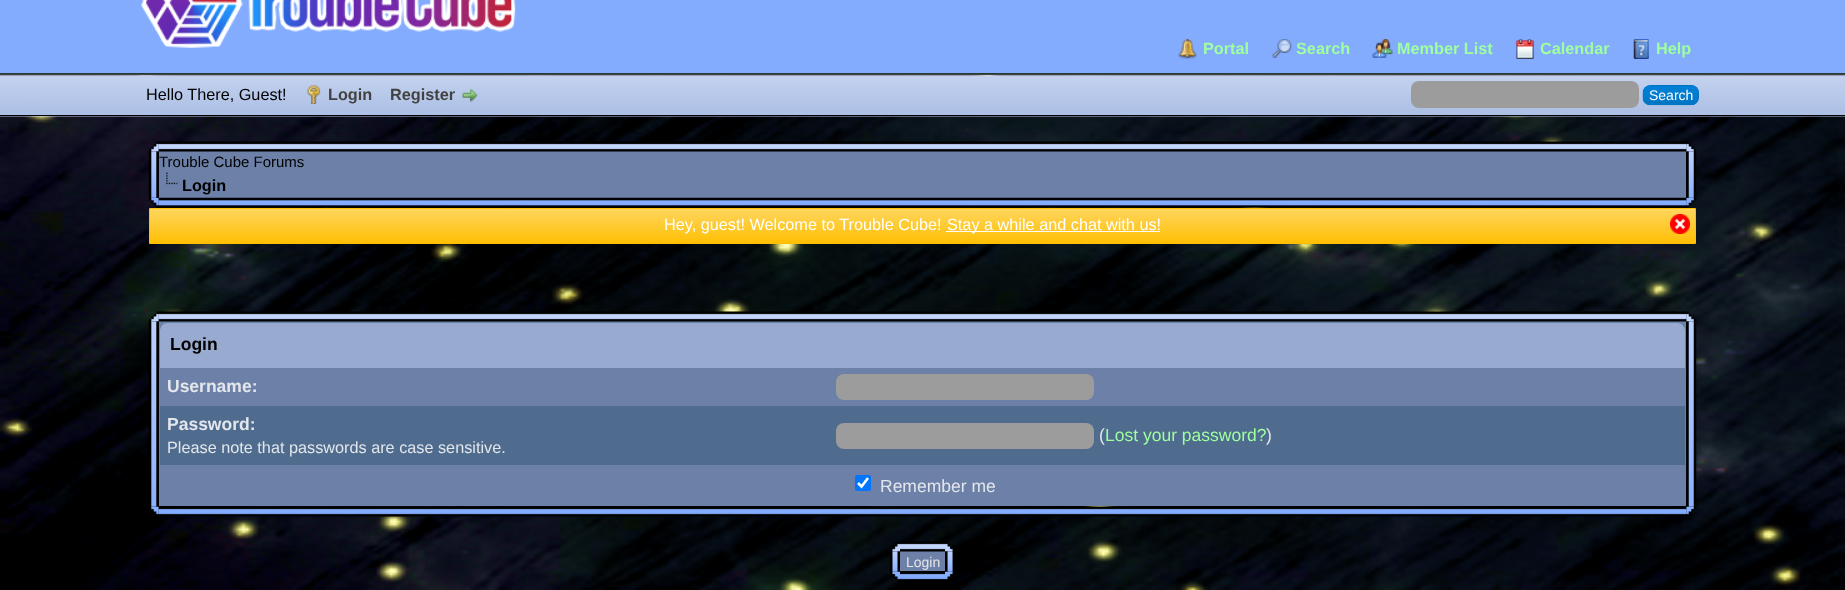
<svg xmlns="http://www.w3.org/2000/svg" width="1845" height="590">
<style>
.a{font:bold 16.25px Liberation Sans;fill:#9fff9f}
.b{font:16.25px Liberation Sans;fill:#000}
.c{font:bold 16.25px Liberation Sans;fill:#424242}
.d{font:14px Liberation Sans;fill:#fff}
.e{font:15px Liberation Sans;fill:#000}
.f{font:bold 16.25px Liberation Sans;fill:#000}
.g{font:16.25px Liberation Sans;fill:#fff}
.h{font:bold 17.5px Liberation Sans;fill:#000}
.i{font:bold 17.5px Liberation Sans;fill:#e3e6ec}
.j{font:16.25px Liberation Sans;fill:#e3e6ec}
.k{font:17.5px Liberation Sans;fill:#e3e6ec}
.l{font:17.5px Liberation Sans;fill:#9fff9f}
.m{font:14px Liberation Sans;fill:#e5e5e5}
</style>
<defs>
<linearGradient id="g1" gradientUnits="userSpaceOnUse" x1="923" y1="209" x2="923" y2="243"><stop offset="0" stop-color="#ffd65e"/><stop offset="1" stop-color="#febf04"/></linearGradient>
</defs>
<rect width="100%" height="100%" fill="#fff"/>
<image href="1.png" x="0" y="75" width="1845" height="515"/>
<path fill="#83acff" d="M0 0h1845v73H0z"/>
<path fill="#263c30" d="M0 73h1845v1H0z"/>
<image href="2.png" x="141" y="0" width="375" height="48"/>
<image href="3.png" x="1178" y="39" width="19" height="20"/>
<image href="4.png" x="1272" y="39" width="20" height="19"/>
<image href="5.png" x="1372" y="39" width="21" height="19"/>
<image href="6.png" x="1516" y="39" width="18" height="20"/>
<image href="7.png" x="1633" y="39" width="16" height="20"/>
<image href="8.png" x="0" y="75" width="1845" height="42"/>
<path fill="#444" d="M0 74h1845v1H0z"/>
<path fill="#000" d="M0 115h1845v1H0z"/>
<image href="9.png" x="307" y="85" width="14" height="19"/>
<image href="10.png" x="462" y="88" width="16" height="14"/>
<rect fill="#9c9c9c" x="1411" y="81" width="228" height="27" rx="8"/>
<rect fill="#0066a2" x="1643" y="85" width="56" height="20" rx="8"/>
<image href="11.png" x="1642" y="85" width="57" height="21"/>
<path fill="#6c80a8" d="M159 151h1527v47H159z"/>
<image href="12.png" x="148" y="141" width="1549" height="67"/>
<image href="13.png" x="166" y="172" width="12" height="13"/>
<path fill="url(#g1)" d="M150 209h1545v34H150z"/>
<path fill="none" stroke="#febf04" d="M149.5 208.5h1546v35H149.5z"/>
<path fill="#fff" d="M946 231h214v1H946z"/>
<image href="14.png" x="1670" y="214" width="20" height="20"/>
<path fill="#6c80a8" d="M159 321h1527v185H159z"/>
<image href="15.png" x="148" y="311" width="1549" height="206"/>
<path fill="#98aacf" d="M168 323h1509c4.5 0 8 3.5 8 8v37h-1525v-37c0-4.5 3.5-8 8-8z"/>
<rect fill="#9c9c9c" x="836" y="374" width="258" height="26" rx="8"/>
<path fill="#4f6c8e" d="M160 406h1525v59H160z"/>
<rect fill="#9c9c9c" x="836" y="423" width="258" height="26" rx="8"/>
<rect fill="#0075ff" x="855" y="475" width="16" height="16" rx="2.5"/>
<path fill="none" stroke="#fff" stroke-width="2.6" d="M858 483l3.5 3.5l6.5-8.5"/>
<path fill="#6c80a8" d="M900 551h45v20H900z"/>
<image href="16.png" x="890" y="541" width="63" height="41"/>
<text class="a" x="1203" y="54">Portal</text>
<text class="a" x="1296" y="54">Search</text>
<text class="a" x="1397" y="54">Member List</text>
<text class="a" x="1540" y="54">Calendar</text>
<text class="a" x="1656" y="54">Help</text>
<text class="b" x="146" y="100">Hello There, Guest!</text>
<text class="c" x="328" y="100">Login</text>
<text class="c" x="390" y="100">Register</text>
<text class="d" x="1649" y="100">Search</text>
<text class="e" x="159" y="167">Trouble Cube Forums</text>
<text class="f" x="182" y="191">Login</text>
<text class="g" x="664" y="230">Hey, guest! Welcome to Trouble Cube!</text>
<text class="g" x="947" y="230">Stay a while and chat with us!</text>
<text class="h" x="170" y="350">Login</text>
<text class="i" x="167" y="392">Username:</text>
<text class="i" x="167" y="430">Password:</text>
<text class="j" x="167" y="453">Please note that passwords are case sensitive.</text>
<text class="k" x="1099" y="441">(</text>
<text class="l" x="1105" y="441">Lost your password?</text>
<text class="k" x="1266" y="441">)</text>
<text class="k" x="880" y="492">Remember me</text>
<text class="m" x="906" y="567">Login</text>
</svg>
